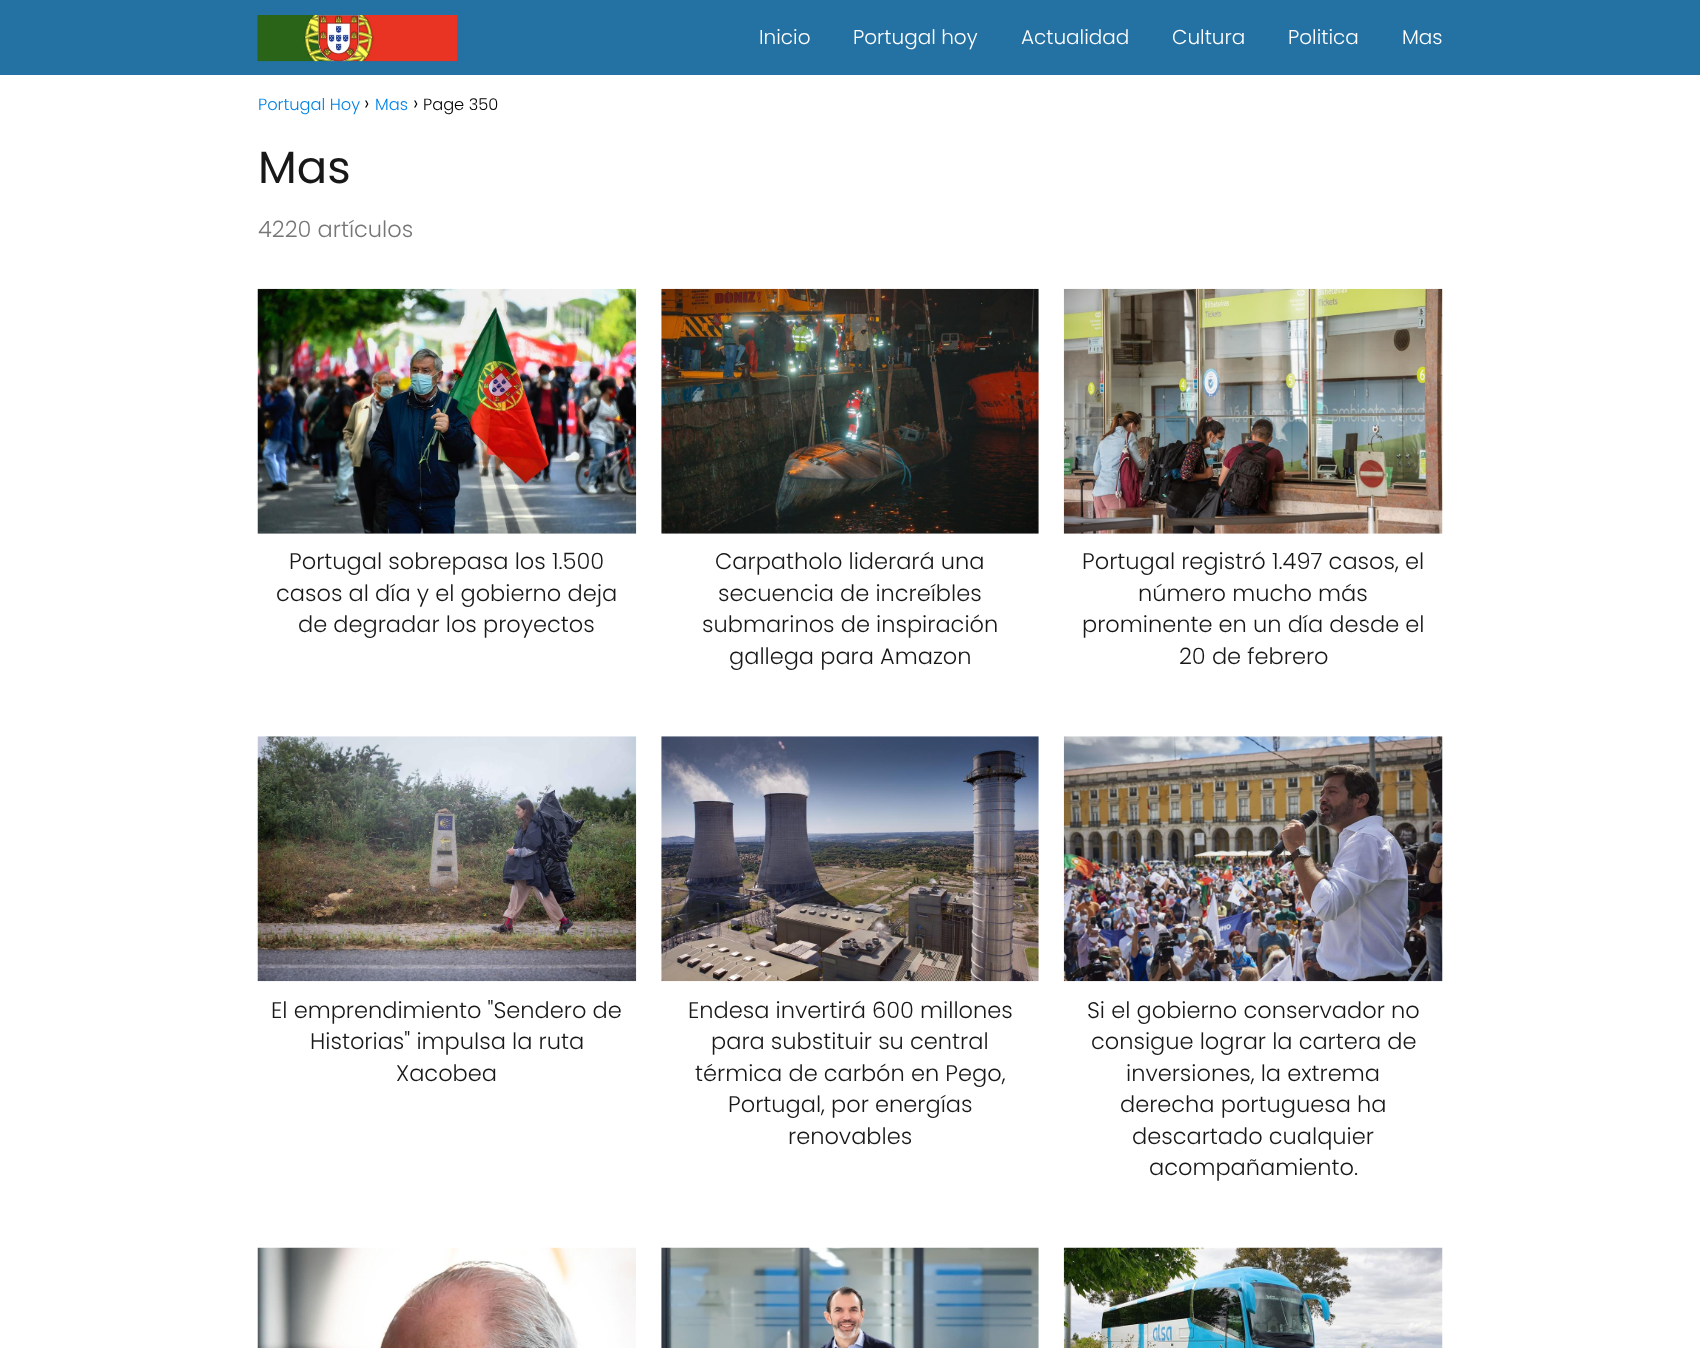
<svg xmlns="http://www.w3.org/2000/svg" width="1700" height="1348">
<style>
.a{font:300 20px Poppins;fill:#fff}
.b{font:300 16.25px Poppins;fill:#0183e4}
.c{font:300 20px Poppins;fill:#000}
.d{font:300 16.25px Poppins;fill:#000}
.e{font:45px Poppins;fill:#181818}
.f{font:300 22.5px Poppins;fill:#767676}
.g{font:300 22.5px Poppins;fill:#181818}
</style>
<rect width="100%" height="100%" fill="#fff"/>
<path fill="#2471a3" d="M0 0h1700v75H0z"/>
<image href="1.png" x="257" y="15" width="201" height="47"/>
<image href="2.png" x="257" y="288" width="380" height="246"/>
<image href="3.png" x="661" y="288" width="378" height="246"/>
<image href="4.png" x="1063" y="288" width="380" height="246"/>
<image href="5.png" x="257" y="736" width="380" height="246"/>
<image href="6.png" x="661" y="736" width="378" height="246"/>
<image href="7.png" x="1063" y="736" width="380" height="246"/>
<image href="8.png" x="257" y="1247" width="379" height="101"/>
<image href="9.png" x="661" y="1247" width="378" height="101"/>
<image href="10.png" x="1063" y="1247" width="380" height="101"/>
<text class="a" x="759" y="44">Inicio</text>
<text class="a" x="853" y="44">Portugal hoy</text>
<text class="a" x="1021" y="44">Actualidad</text>
<text class="a" x="1172" y="44">Cultura</text>
<text class="a" x="1288" y="44">Politica</text>
<text class="a" x="1402" y="44">Mas</text>
<text class="b" x="258" y="110">Portugal Hoy</text>
<text class="c" x="364" y="110">›</text>
<text class="b" x="375" y="110">Mas</text>
<text class="c" x="413" y="110">›</text>
<text class="d" x="423" y="110">Page 350</text>
<text class="e" x="258" y="183">Mas</text>
<text class="f" x="258" y="237">4220 artículos</text>
<text class="g" x="289" y="569">Portugal sobrepasa los 1.500</text>
<text class="g" x="276" y="601">casos al día y el gobierno deja</text>
<text class="g" x="298" y="632">de degradar los proyectos</text>
<text class="g" x="715" y="569">Carpatholo liderará una</text>
<text class="g" x="718" y="601">secuencia de increíbles</text>
<text class="g" x="702" y="632">submarinos de inspiración</text>
<text class="g" x="729" y="664">gallega para Amazon</text>
<text class="g" x="1082" y="569">Portugal registró 1.497 casos, el</text>
<text class="g" x="1138" y="601">número mucho más</text>
<text class="g" x="1082" y="632">prominente en un día desde el</text>
<text class="g" x="1179" y="664">20 de febrero</text>
<text class="g" x="271" y="1018">El emprendimiento "Sendero de</text>
<text class="g" x="310" y="1049">Historias" impulsa la ruta</text>
<text class="g" x="396" y="1081">Xacobea</text>
<text class="g" x="688" y="1018">Endesa invertirá 600 millones</text>
<text class="g" x="711" y="1049">para substituir su central</text>
<text class="g" x="695" y="1081">térmica de carbón en Pego,</text>
<text class="g" x="728" y="1112">Portugal, por energías</text>
<text class="g" x="788" y="1144">renovables</text>
<text class="g" x="1087" y="1018">Si el gobierno conservador no</text>
<text class="g" x="1091" y="1049">consigue lograr la cartera de</text>
<text class="g" x="1126" y="1081">inversiones, la extrema</text>
<text class="g" x="1120" y="1112">derecha portuguesa ha</text>
<text class="g" x="1132" y="1144">descartado cualquier</text>
<text class="g" x="1149" y="1175">acompañamiento.</text>
</svg>
